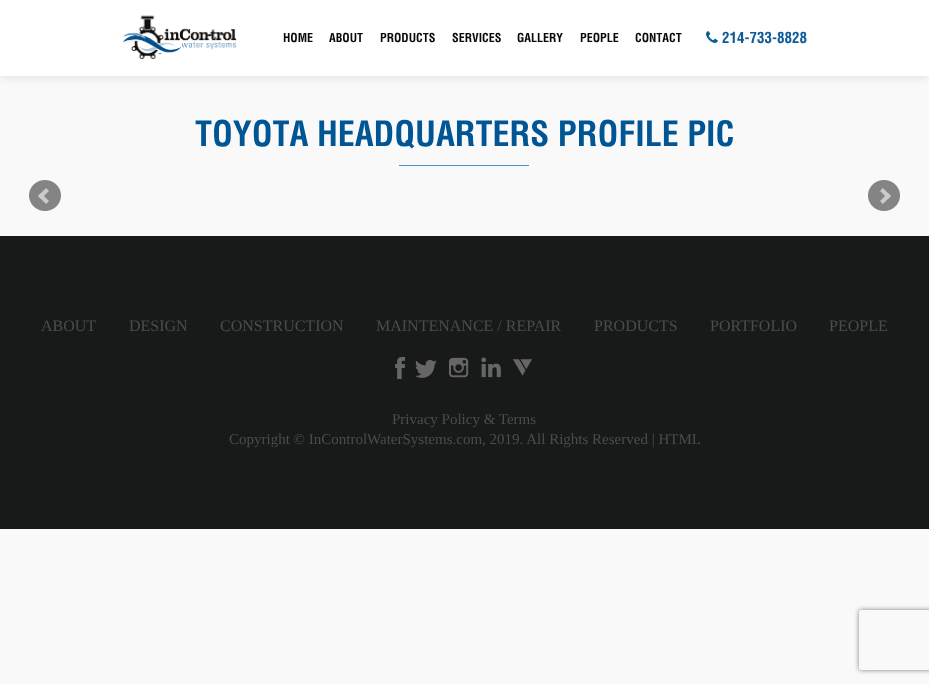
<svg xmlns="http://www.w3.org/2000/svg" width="929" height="684">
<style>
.a{font:bold 12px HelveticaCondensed;fill:#080a0b}
.b{font:bold 15px HelveticaCondensed;fill:#0d5b97}
.c{font:bold 34px HelveticaCondensed;fill:#005594}
.d{font:16px Liberation Serif;fill:#4c4c4c}
.e{font:15px Liberation Serif;fill:#4c4c4c}
</style>
<defs>
<clipPath id="clip1"><path d="M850 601h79v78h-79zm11 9h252c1 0 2 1 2 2v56c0 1-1 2-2 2h-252c-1 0-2-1-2-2v-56c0-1 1-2 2-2z" clip-rule="evenodd"/></clipPath>
</defs>
<rect width="100%" height="100%" fill="#f9f9f9"/>
<path fill="#0000001c" filter="blur(4px)" d="M0 1h929v76H0z"/>
<path fill="#fff" d="M0 0h929v76H0z"/>
<image href="1.png" x="123" y="15" width="114" height="45"/>
<image href="2.png" x="706" y="31" width="12" height="12"/>
<path fill="#4192ce" d="M399 165h130v1H399z"/>
<image href="3.png" x="29" y="180" width="32" height="31"/>
<image href="4.png" x="868" y="180" width="32" height="31"/>
<path fill="#181919" d="M0 236h929v293H0z"/>
<image href="5.png" x="395" y="357" width="10" height="22"/>
<image href="6.png" x="415" y="360" width="22" height="18"/>
<image href="7.png" x="449" y="357" width="20" height="21"/>
<image href="8.png" x="481" y="357" width="20" height="21"/>
<image href="9.png" x="513" y="359" width="19" height="17"/>
<g clip-path="url(#clip1)">
<rect fill="#808080" filter="blur(2.5px)" x="859" y="610" width="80" height="60" rx="2"/>
</g>
<text class="a" x="283" y="42">HOME</text>
<text class="a" x="329" y="42">ABOUT</text>
<text class="a" x="380" y="42">PRODUCTS</text>
<text class="a" x="452" y="42">SERVICES</text>
<text class="a" x="517" y="42">GALLERY</text>
<text class="a" x="580" y="42">PEOPLE</text>
<text class="a" x="635" y="42">CONTACT</text>
<text class="b" x="722" y="43">214-733-8828</text>
<text class="c" x="195" y="146">TOYOTA HEADQUARTERS PROFILE PIC</text>
<text class="d" x="41" y="331">ABOUT</text>
<text class="d" x="129" y="331">DESIGN</text>
<text class="d" x="220" y="331">CONSTRUCTION</text>
<text class="d" x="376" y="331">MAINTENANCE / REPAIR</text>
<text class="d" x="594" y="331">PRODUCTS</text>
<text class="d" x="710" y="331">PORTFOLIO</text>
<text class="d" x="829" y="331">PEOPLE</text>
<text class="e" x="392" y="424">Privacy Policy &amp; Terms</text>
<text class="e" x="229" y="444">Copyright © InControlWaterSystems.com, 2019. All Rights Reserved | HTML</text>
</svg>
